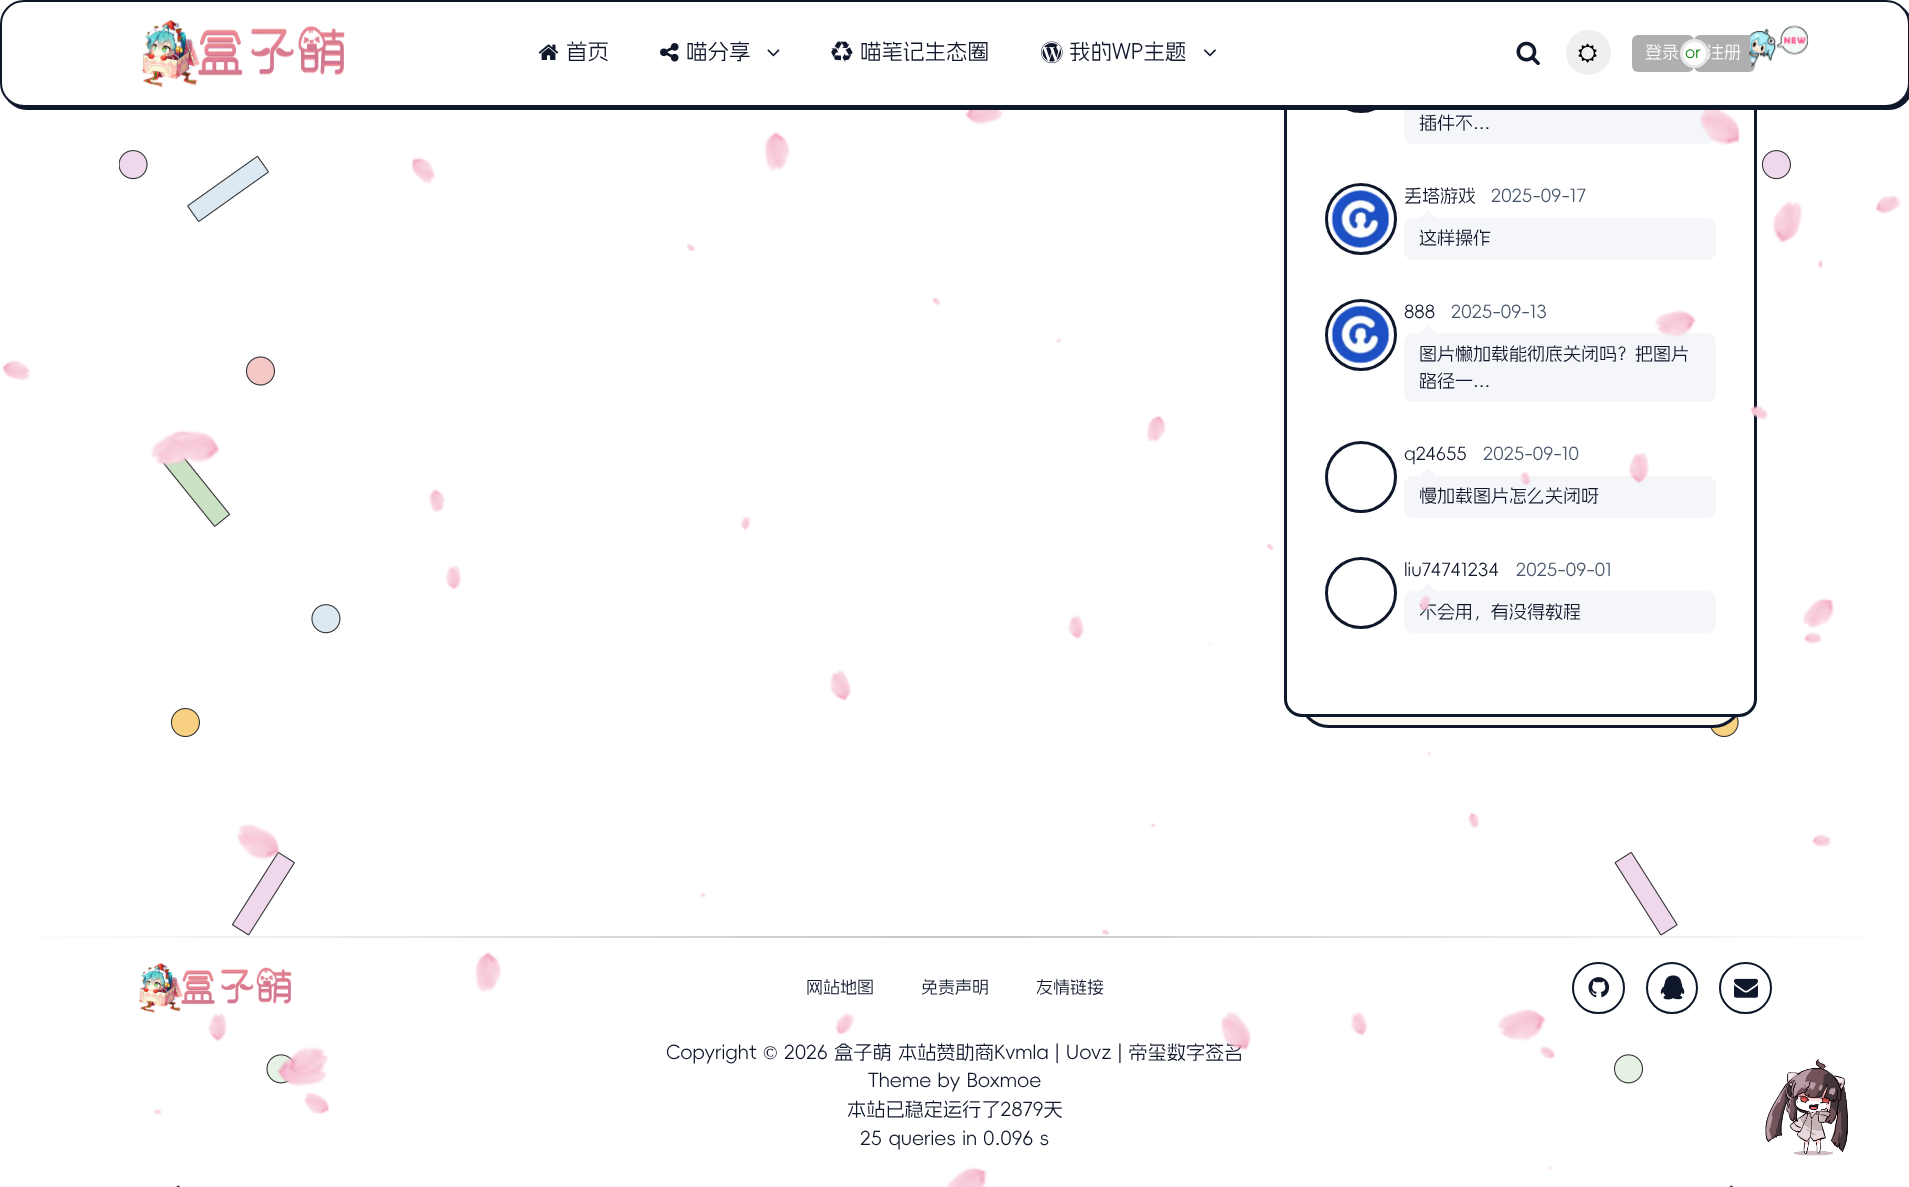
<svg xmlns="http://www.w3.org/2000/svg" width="1909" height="1187">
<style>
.a{font:21.5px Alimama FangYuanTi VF;fill:#0f172a}
.b{font:17px Alimama FangYuanTi VF;fill:#fff}
.c{font:16px Alimama FangYuanTi VF;fill:#008008}
.d{font:18px Alimama FangYuanTi VF;fill:#0f172a}
.e{font:18px Alimama FangYuanTi VF;fill:#475569}
.f{font:17px Alimama FangYuanTi VF;fill:#0f172a}
.g{font:19.2px Alimama FangYuanTi VF;fill:#0f172a}
.h{font:19.2px Liberation Serif;fill:#0f172a}
</style>
<defs>
<linearGradient id="g1" gradientUnits="userSpaceOnUse" x1="0" y1="937" x2="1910" y2="937"><stop offset="0" stop-color="#fff"/><stop offset="0.5" stop-color="#c3c5ca"/><stop offset="1" stop-color="#fff"/></linearGradient>
</defs>
<rect width="100%" height="100%" fill="#fff"/>
<image href="15.png" x="1613" y="150" width="178" height="1037"/>
<rect fill="#fbf8f2" stroke="#0f172a" stroke-width="3" x="1300.5" y="-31.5" width="441" height="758" rx="28.5"/>
<rect fill="#fff" stroke="#0f172a" stroke-width="3" x="1285.5" y="-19.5" width="470" height="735" rx="16.5"/>
<circle fill="none" stroke="#0f172a" stroke-width="3" cx="1361" cy="77" r="34.5"/>
<rect fill="#f4f6f9" x="1404" y="75" width="312" height="69" rx="9"/>
<path fill="#0f172a" d="M7 100c5 6 12 10 20 10h1862c13 0 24-11 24-24v-59c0-8-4-15-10-20c4 5 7 11 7 17v58c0 14-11 24-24 24h-1862c-6 0-12-2-17-6z"/>
<rect fill="#fff" stroke="#0f172a" stroke-width="2" x="1" y="1" width="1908" height="105" rx="23"/>
<image href="1.png" x="141" y="20" width="204" height="68"/>
<image href="2.png" x="538" y="44" width="21" height="16"/>
<image href="3.png" x="660" y="43" width="19" height="19"/>
<image href="4.png" x="767" y="49" width="13" height="8"/>
<image href="5.png" x="831" y="41" width="22" height="21"/>
<image href="6.png" x="1041" y="41" width="22" height="23"/>
<image href="7.png" x="1204" y="49" width="12" height="8"/>
<image href="8.png" x="1516" y="41" width="24" height="25"/>
<circle fill="#efefef" cx="1588.5" cy="52.5" r="22.5"/>
<image href="9.png" x="1578" y="43" width="19" height="20"/>
<rect fill="#afafaf" x="1632" y="35" width="62" height="37" rx="6"/>
<rect fill="#afafaf" x="1694" y="35" width="61" height="37" rx="6"/>
<circle fill="#fff" stroke="#e7e7e7" stroke-width="3" cx="1694.5" cy="53.5" r="13"/>
<image href="10.png" x="1749" y="25" width="60" height="42"/>
<circle fill="none" stroke="#0f172a" stroke-width="3" cx="1361" cy="219" r="34.5"/>
<image href="12.png" x="1331" y="190" width="59" height="58"/>
<rect fill="#f4f6f9" x="1404" y="218" width="312" height="42" rx="9"/>
<path fill="#f4f6f9" d="M1437 219h-18l9-9z"/>
<circle fill="none" stroke="#0f172a" stroke-width="3" cx="1361" cy="335" r="34.5"/>
<image href="13.png" x="1331" y="305" width="59" height="59"/>
<rect fill="#f4f6f9" x="1404" y="333" width="312" height="69" rx="9"/>
<path fill="#f4f6f9" d="M1437 334.5h-18l9-9z"/>
<circle fill="none" stroke="#0f172a" stroke-width="3" cx="1361" cy="477" r="34.5"/>
<rect fill="#f4f6f9" x="1404" y="476" width="312" height="42" rx="9"/>
<path fill="#f4f6f9" d="M1437 477h-18l9-9z"/>
<circle fill="none" stroke="#0f172a" stroke-width="3" cx="1361" cy="593" r="34.5"/>
<rect fill="#f4f6f9" x="1404" y="591" width="312" height="42" rx="9"/>
<path fill="#f4f6f9" d="M1437 592.5h-18l9-9z"/>
<image href="14.png" x="119" y="150" width="222" height="1037"/>
<path fill="url(#g1)" d="M40 936h1830v2H40z"/>
<image href="16.png" x="138" y="963" width="154" height="50"/>
<rect fill="none" stroke="#0f172a" stroke-width="2" x="1573" y="963" width="51" height="50" rx="25"/>
<image href="17.png" x="1588" y="977" width="22" height="21"/>
<circle fill="none" stroke="#0f172a" stroke-width="2" cx="1672" cy="988" r="25"/>
<image href="18.png" x="1660" y="975" width="25" height="25"/>
<rect fill="none" stroke="#0f172a" stroke-width="2" x="1720" y="963" width="51" height="50" rx="25"/>
<image href="19.png" x="1734" y="978" width="24" height="20"/>
<text class="a" x="566" y="59">首页</text>
<text class="a" x="686" y="59">喵分享</text>
<text class="a" x="860" y="59">喵笔记生态圈</text>
<text class="a" x="1069" y="59">我的WP主题</text>
<text class="b" x="1645" y="58">登录</text>
<text class="c" x="1685" y="58">or</text>
<text class="b" x="1707" y="58">注册</text>
<text class="d" x="1419" y="129">插件不...</text>
<text class="d" x="1404" y="202">丢塔游戏</text>
<text class="e" x="1491" y="202">2025-09-17</text>
<text class="d" x="1419" y="244">这样操作</text>
<text class="d" x="1404" y="318">888</text>
<text class="e" x="1451" y="318">2025-09-13</text>
<text class="d" x="1419" y="360">图片懒加载能彻底关闭吗？把图片</text>
<text class="d" x="1419" y="387">路径一...</text>
<text class="d" x="1404" y="460">q24655</text>
<text class="e" x="1483" y="460">2025-09-10</text>
<text class="d" x="1419" y="502">慢加载图片怎么关闭呀</text>
<text class="d" x="1404" y="576">liu74741234</text>
<text class="e" x="1516" y="576">2025-09-01</text>
<text class="d" x="1419" y="618">不会用，有没得教程</text>
<text class="f" x="806" y="993">网站地图</text>
<text class="f" x="921" y="993">免责声明</text>
<text class="f" x="1036" y="993">友情链接</text>
<text class="g" x="666" y="1059">Copyright</text>
<text class="h" x="763" y="1059">©</text>
<text class="g" x="784" y="1059">2026 盒子萌 本站赞助商Kvmla | Uovz | 帝玺数字签名</text>
<text class="g" x="868" y="1087">Theme by Boxmoe</text>
<text class="g" x="847" y="1116">本站已稳定运行了2879天</text>
<text class="g" x="860" y="1145">25 queries in 0.096 s</text>
<image href="11.png" x="2" y="110" width="1899" height="1077"/>
<image href="20.png" x="1765" y="1059" width="83" height="97"/>
</svg>
